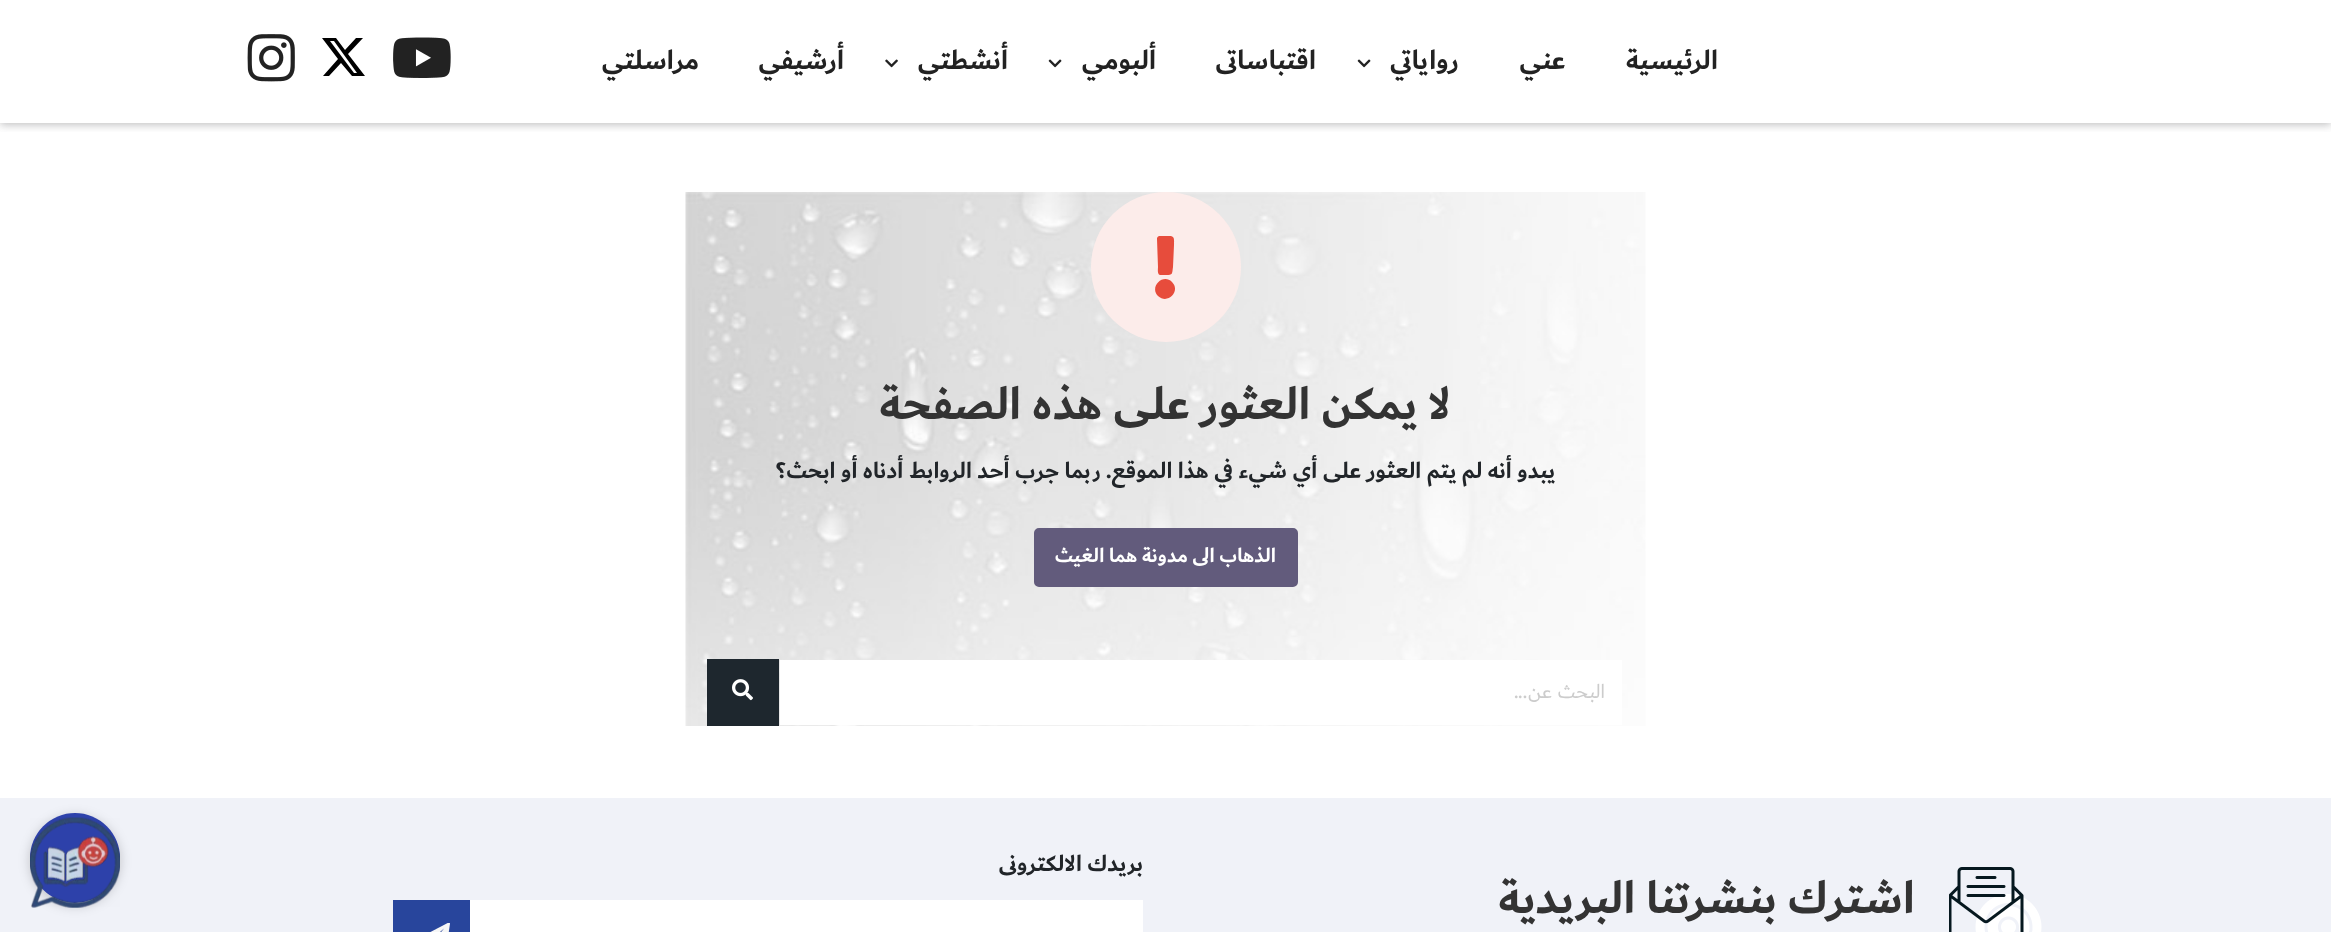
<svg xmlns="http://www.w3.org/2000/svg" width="2331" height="932">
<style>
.a{font:bold 28.5px 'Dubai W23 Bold';direction:rtl;fill:#222}
.b{font:bold 48px 'Dubai W23 Bold';direction:rtl;fill:#333}
.c{font:bold 24px 'Dubai W23 Bold';direction:rtl;fill:#212529}
.d{font:bold 21px 'Dubai W23 Bold';direction:rtl;fill:#fff}
.e{font:21px 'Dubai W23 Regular';direction:rtl;fill:#ccc}
</style>
<defs>
<clipPath id="clip1"><path d="M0 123h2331v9H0z"/></clipPath>
</defs>
<rect width="100%" height="100%" fill="#fff"/>
<g clip-path="url(#clip1)">
<path fill="#20212447" filter="blur(4.5px)" d="M0 2h2331v123H0z"/>
</g>
<image href="1.png" x="1357" y="59" width="14" height="9"/>
<image href="1.png" x="1048" y="59" width="14" height="9"/>
<image href="2.png" x="885" y="59" width="13" height="9"/>
<image href="3.png" x="393" y="37" width="58" height="41"/>
<path fill="#000" d="M356 38h7l-15 16l17 22h-13l-11-13l-12 13h-6l15-17l-16-21h14l9 12zm-2 35h3l-23-32h-4z"/>
<image href="4.png" x="247" y="34" width="48" height="48"/>
<image href="5.png" x="685" y="192" width="961" height="534"/>
<circle fill="#fcecea" cx="1166" cy="267" r="75"/>
<path fill="#e74c3c" d="M1172 282c9 9-4 23-14 14c-9-9 5-23 14-14zm-15-43c0-4 4-3 6-3h6c6 0 5 3 5 9l-1 22c-1 7 0 8-7 8h-6c-3-1-2-6-2-8z"/>
<rect fill="#625b7c" stroke="#625b7c" stroke-width="2" x="1035" y="529" width="262" height="57" rx="4"/>
<path fill="#fff" d="M780 660h842v65H780z"/>
<path fill="#1e272e" d="M707 659h72v67H707z"/>
<image href="6.png" x="732" y="679" width="21" height="22"/>
<path fill="#f0f2f8" d="M0 798h2331v134H0z"/>
<path fill="#fff" d="M470 900h673v32H470z"/>
<path fill="#28459c" d="M393 900h77v32H393z"/>
<image href="7.png" x="430" y="923" width="20" height="9"/>
<image href="8.png" x="1949" y="867" width="93" height="65"/>
<rect fill="#00000033" filter="blur(6px)" x="30" y="816" width="90" height="90" rx="45"/>
<circle fill="#2e42ab" cx="75" cy="858" r="45"/>
<image href="9.png" x="30" y="817" width="90" height="91"/>
<text class="a" x="1718" y="69">الرئيسية</text>
<text class="a" x="1566" y="69">عني</text>
<text class="a" x="1459" y="69">رواياتي</text>
<text class="a" x="1316" y="69">اقتباساتى</text>
<text class="a" x="1156" y="69">ألبومي</text>
<text class="a" x="1008" y="69">أنشطتي</text>
<text class="a" x="844" y="69">أرشيفي</text>
<text class="a" x="699" y="69">مراسلتي</text>
<text class="b" x="1451" y="419">لا يمكن العثور على هذه الصفحة</text>
<text class="c" x="1555" y="478">يبدو أنه لم يتم العثور على أي شيء في هذا الموقع. ربما جرب أحد الروابط أدناه أو ابحث؟</text>
<text class="d" x="1276" y="562">الذهاب الى</text>
<text class="d" x="1188" y="562">مدونة هما الغيث</text>
<text class="e" x="1605" y="698">البحث عن...</text>
<text class="c" x="1143" y="871">بريدك الالكترونى</text>
<text class="b" x="1915" y="913">اشترك بنشرتنا البريدية</text>
</svg>
